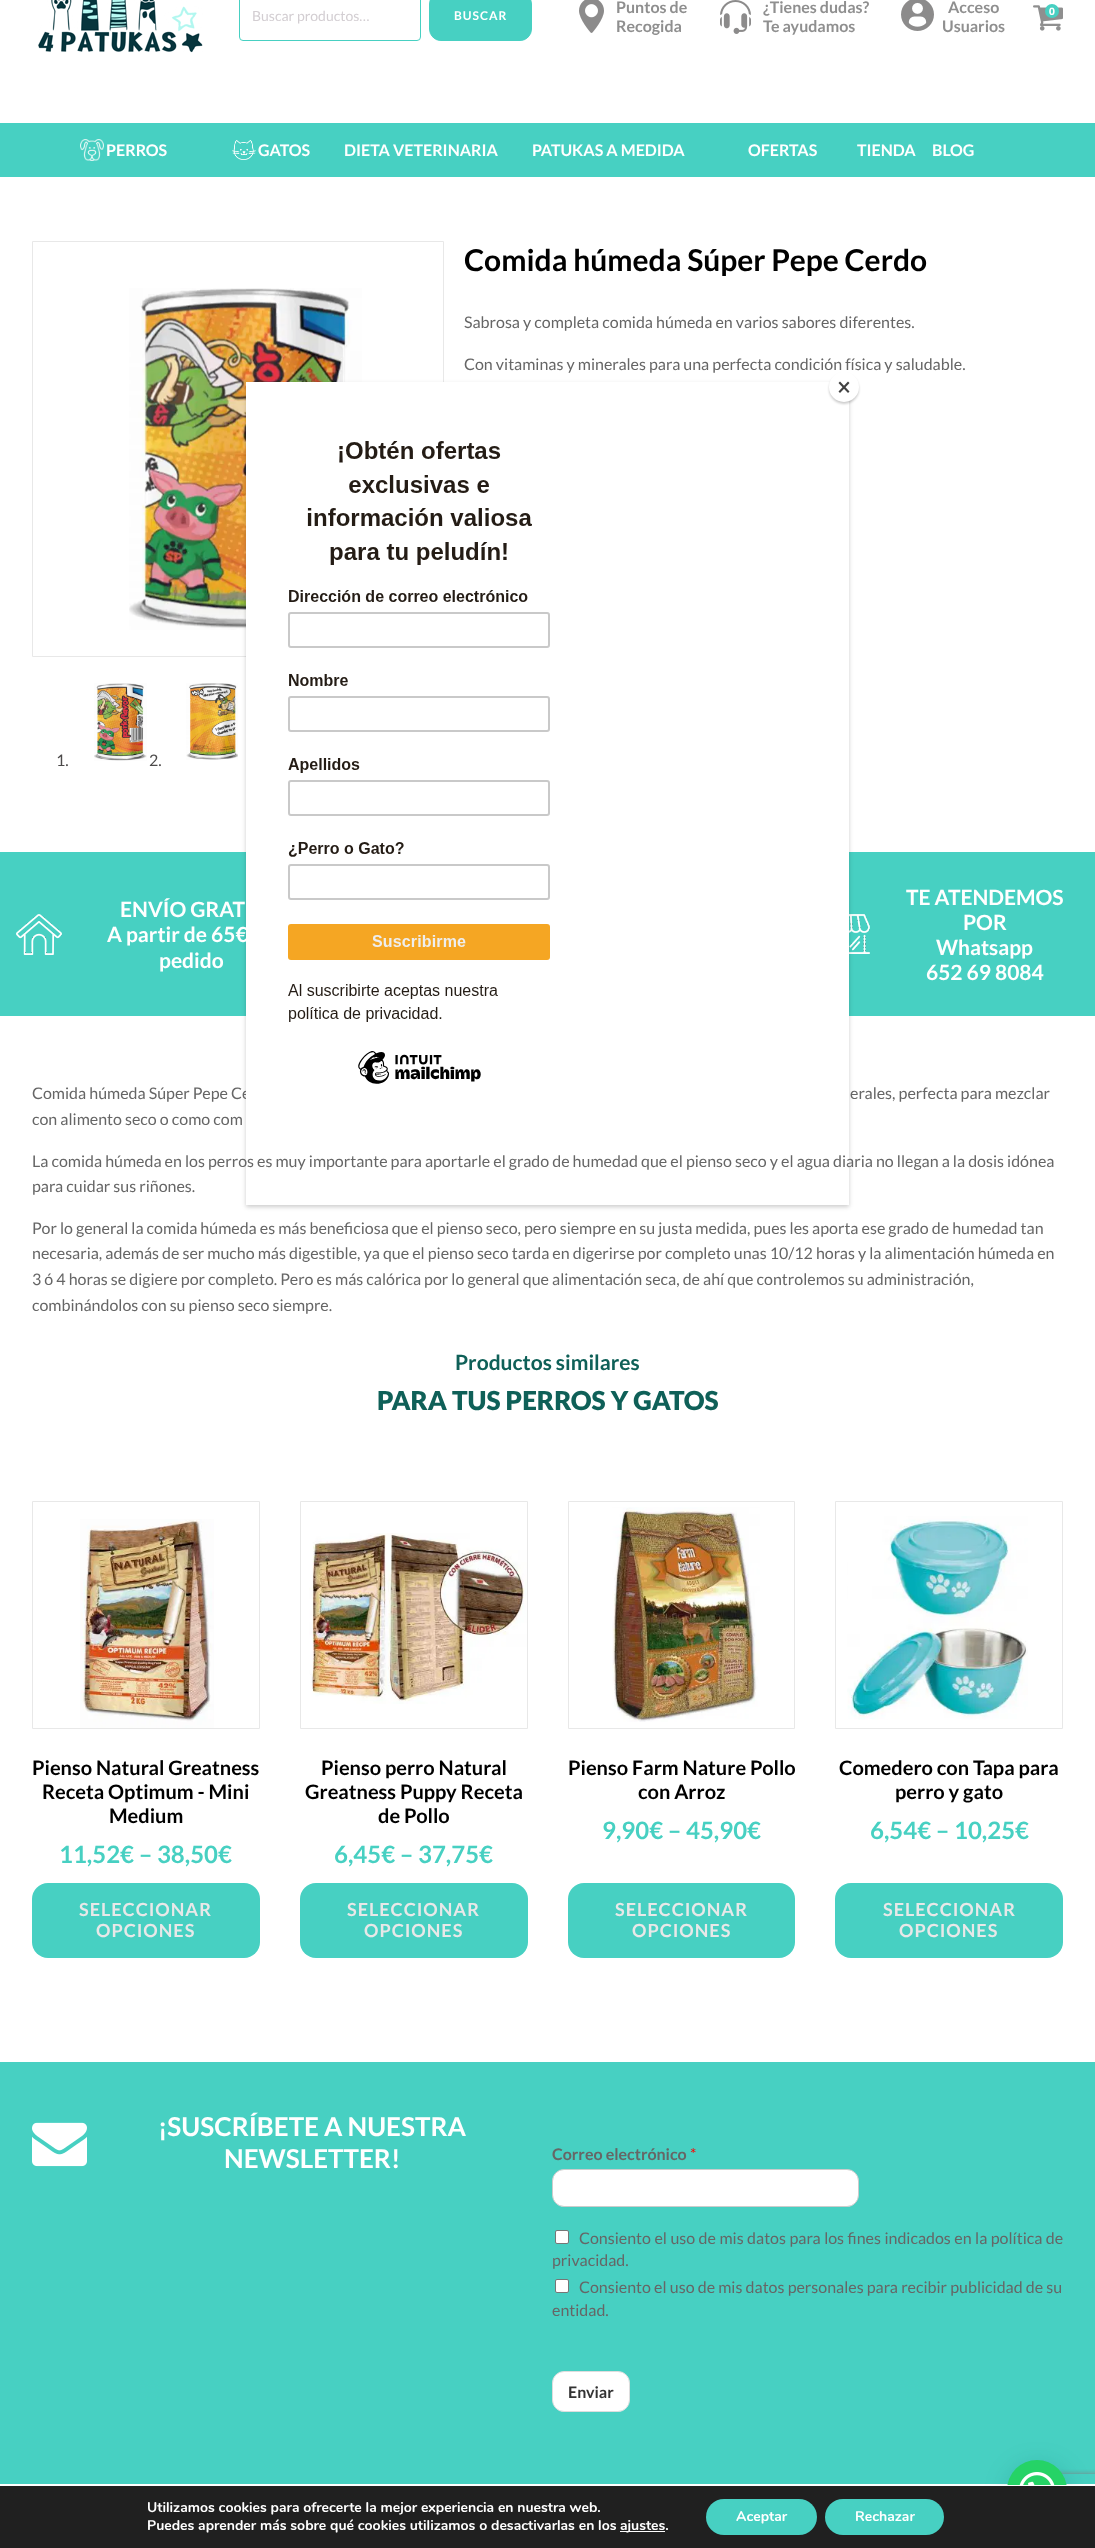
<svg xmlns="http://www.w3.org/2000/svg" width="1095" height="2548">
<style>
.a{font:14px Lato;fill:#d3ced2}
.b{font:bold 12px Lato;letter-spacing:1px;fill:#fff}
.c{font:bold 16px Lato;fill:#8f8f8f}
.d{font:900 10px Lato;fill:#fff}
.e{font:bold 16px Lato;fill:#fff}
.f{font:bold 30px Lato;fill:#000}
.g{font:16px Lato;fill:#666}
.h{font:16px Lato;fill:#4c4a4a}
.i{font:bold 21px Lato;fill:#fff}
.j{font:bold 21px Lato;fill:#0f6058}
.k{font:900 26px Lato;fill:#0f6058}
.l{font:bold 20px Lato;fill:#000}
.m{font:bold 24px Lato;fill:#47d0c2}
.n{font:bold 18px Lato;letter-spacing:1px;fill:#e8e8e8}
.o{font:bold 26px Lato;fill:#fff}
.p{font:bold 16px Lato;fill:#666}
.q{font:16px Lato;fill:#f00}
.r{font:bold 16px Lato;fill:#333}
.s{font:bold 14px Nunito;fill:#fff}
</style>
<defs>
<clipPath id="clip1"><path d="M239 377h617v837h-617zm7 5h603v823h-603z" clip-rule="evenodd"/></clipPath>
<clipPath id="clip2"><path d="M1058 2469h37v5H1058z"/></clipPath>
</defs>
<rect width="100%" height="100%" fill="#fff"/>
<image href="1.png" x="38" y="0" width="165" height="53"/>
<rect fill="none" stroke="#47d0c2" x="239.5" y="-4.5" width="181" height="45" rx="3.5"/>
<rect fill="#47d0c2" stroke="#47d0c2" x="429.5" y="-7.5" width="102" height="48" rx="11.5"/>
<image href="2.png" x="579" y="0" width="25" height="33"/>
<image href="3.png" x="720" y="0" width="31" height="34"/>
<image href="4.png" x="901" y="0" width="33" height="31"/>
<image href="5.png" x="1033" y="5" width="30" height="26"/>
<circle fill="#47d0c2" cx="1052" cy="11" r="7"/>
<path fill="#47d0c2" d="M0 123h1095v54H0z"/>
<image href="6.png" x="80" y="139" width="24" height="22"/>
<image href="7.png" x="232" y="140" width="24" height="20"/>
<path fill="none" stroke="#e8e8e8" d="M32.5 241.5h411v415H32.5z"/>
<image href="8.png" x="129" y="288" width="233" height="342"/>
<image href="9.png" x="94" y="683" width="53" height="78"/>
<image href="10.png" x="186" y="683" width="52" height="77"/>
<path fill="#47d0c2" d="M0 852h1095v164H0z"/>
<image href="13.png" x="849" y="914" width="21" height="40"/>
<g clip-path="url(#clip1)">
<path fill="#00000033" filter="blur(2px)" d="M246 384h603v823H246z"/>
</g>
<image href="12.png" x="16" y="914" width="46" height="41"/>
<path fill="none" stroke="#e8e8e8" d="M32.5 1501.5h227v227H32.5z"/>
<image href="14.png" x="80" y="1519" width="134" height="209"/>
<rect fill="#47d0c2" x="32" y="1883" width="228" height="75" rx="16"/>
<path fill="none" stroke="#e8e8e8" d="M300.5 1501.5h227v227H300.5z"/>
<image href="15.png" x="309" y="1533" width="218" height="171"/>
<rect fill="#47d0c2" x="300" y="1883" width="228" height="75" rx="16"/>
<path fill="none" stroke="#e8e8e8" d="M568.5 1501.5h226v227H568.5z"/>
<image href="16.png" x="612" y="1507" width="148" height="215"/>
<rect fill="#47d0c2" x="568" y="1883" width="227" height="75" rx="16"/>
<path fill="none" stroke="#e8e8e8" d="M835.5 1501.5h227v227H835.5z"/>
<image href="17.png" x="847" y="1516" width="181" height="204"/>
<rect fill="#47d0c2" x="835" y="1883" width="228" height="75" rx="16"/>
<path fill="#47d0c2" d="M0 2062h1095v422H0z"/>
<image href="18.png" x="32" y="2122" width="55" height="45"/>
<rect fill="#fff" stroke="#ccc" x="552.5" y="2169.5" width="306" height="37" rx="11.5"/>
<rect fill="#fff" stroke="#767676" x="555.5" y="2230.5" width="13" height="13" rx="1.5"/>
<rect fill="#fff" stroke="#767676" x="555.5" y="2279.5" width="13" height="13" rx="1.5"/>
<rect fill="#fff" stroke="#ddd" x="552.5" y="2371.5" width="77" height="40" rx="11.5"/>
<rect fill="#075e543d" filter="blur(12px)" x="1008" y="2466" width="60" height="60" rx="30"/>
<g clip-path="url(#clip2)">
<rect fill="#808080" filter="blur(2.5px)" x="1025" y="2474" width="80" height="60" rx="2"/>
</g>
<circle fill="#25d366" cx="1037" cy="2490" r="30"/>
<image href="19.png" x="1019" y="2472" width="36" height="13"/>
<path fill="#202020" d="M0 2486h1095v62H0z"/>
<path fill="#fff" d="M991 2485h94v1H991z"/>
<path fill="#fff" d="M620 2531h45v1H620z"/>
<rect fill="#47d0c2" x="706" y="2499" width="111" height="36" rx="18"/>
<rect fill="#47d0c2" x="825" y="2499" width="119" height="36" rx="18"/>
<text class="a" x="252" y="21">Buscar productos…</text>
<text class="b" x="454" y="20">BUSCAR</text>
<text class="c" x="616" y="13">Puntos de</text>
<text class="c" x="616" y="32">Recogida</text>
<text class="c" x="763" y="13">¿Tienes dudas?</text>
<text class="c" x="763" y="32">Te ayudamos</text>
<text class="c" x="948" y="13">Acceso</text>
<text class="c" x="942" y="32">Usuarios</text>
<text class="d" x="1049" y="15">0</text>
<text class="e" x="106" y="156">PERROS</text>
<text class="e" x="258" y="156">GATOS</text>
<text class="e" x="344" y="156">DIETA VETERINARIA</text>
<text class="e" x="532" y="156">PATUKAS A MEDIDA</text>
<text class="e" x="748" y="156">OFERTAS</text>
<text class="e" x="857" y="156">TIENDA</text>
<text class="e" x="932" y="156">BLOG</text>
<text class="f" x="464" y="271">Comida húmeda Súper Pepe Cerdo</text>
<text class="g" x="464" y="328">Sabrosa y completa comida húmeda en varios sabores diferentes.</text>
<text class="g" x="464" y="370">Con vitaminas y minerales para una perfecta condición física y saludable.</text>
<text class="h" x="56" y="766">1.</text>
<text class="h" x="149" y="766">2.</text>
<text class="i" x="120" y="917">ENVÍO GRAT</text>
<text class="i" x="107" y="942">A partir de 65€</text>
<text class="i" x="159" y="968">pedido</text>
<text class="i" x="906" y="905">TE ATENDEMOS</text>
<text class="i" x="963" y="930">POR</text>
<text class="i" x="936" y="955">Whatsapp</text>
<text class="i" x="926" y="980">652 69 8084</text>
<text class="g" x="32" y="1099">Comida húmeda Súper Pepe Ce</text>
<image href="11.png" x="246" y="382" width="603" height="743"/>
<rect fill="#00000033" filter="blur(1px)" x="829" y="374" width="30" height="30" rx="15"/>
<circle fill="#fff" cx="844" cy="387" r="15"/>
<path fill="#414141" d="M848 381.5l1.5 1.5l-9.5 10l-1.5-1.5z"/>
<path fill="#414141" d="M838.5 383l1.5-1.5l9.5 10l-1.5 1.5z"/>
<text class="g" x="850" y="1099">erales, perfecta para mezclar</text>
<text class="g" x="32" y="1125">con alimento seco o como com</text>
<text class="g" x="32" y="1167">La comida húmeda en los perros es muy importante para aportarle el grado de humedad que el pienso seco y el agua diaria no llegan a la dosis idónea</text>
<text class="g" x="32" y="1192">para cuidar sus riñones.</text>
<text class="g" x="32" y="1234">Por lo general la comida húmeda es más beneficiosa que el pienso seco, pero siempre en su justa medida, pues les aporta ese grado de humedad tan</text>
<text class="g" x="32" y="1259">necesaria, además de ser mucho más digestible, ya que el pienso seco tarda en digerirse por completo unas 10/12 horas y la alimentación húmeda en</text>
<text class="g" x="32" y="1285">3 ó 4 horas se digiere por completo. Pero es más calórica por lo general que alimentación seca, de ahí que controlemos su administración,</text>
<text class="g" x="32" y="1311">combinándolos con su pienso seco siempre.</text>
<text class="j" x="455" y="1370">Productos similares</text>
<text class="k" x="377" y="1410">PARA TUS PERROS Y GATOS</text>
<text class="l" x="32" y="1775">Pienso Natural Greatness</text>
<text class="l" x="42" y="1799">Receta Optimum - Mini</text>
<text class="l" x="109" y="1823">Medium</text>
<text class="m" x="59" y="1863">11,52€ – 38,50€</text>
<text class="n" x="79" y="1916">SELECCIONAR</text>
<text class="n" x="96" y="1937">OPCIONES</text>
<text class="l" x="321" y="1775">Pienso perro Natural</text>
<text class="l" x="305" y="1799">Greatness Puppy Receta</text>
<text class="l" x="378" y="1823">de Pollo</text>
<text class="m" x="334" y="1863">6,45€ – 37,75€</text>
<text class="n" x="347" y="1916">SELECCIONAR</text>
<text class="n" x="364" y="1937">OPCIONES</text>
<text class="l" x="568" y="1775">Pienso Farm Nature Pollo</text>
<text class="l" x="638" y="1799">con Arroz</text>
<text class="m" x="602" y="1839">9,90€ – 45,90€</text>
<text class="n" x="615" y="1916">SELECCIONAR</text>
<text class="n" x="632" y="1937">OPCIONES</text>
<text class="l" x="839" y="1775">Comedero con Tapa para</text>
<text class="l" x="895" y="1799">perro y gato</text>
<text class="m" x="870" y="1839">6,54€ – 10,25€</text>
<text class="n" x="883" y="1916">SELECCIONAR</text>
<text class="n" x="899" y="1937">OPCIONES</text>
<text class="o" x="158" y="2136">¡SUSCRÍBETE A NUESTRA</text>
<text class="o" x="224" y="2168">NEWSLETTER!</text>
<text class="p" x="552" y="2160">Correo electrónico</text>
<text class="q" x="690" y="2160">*</text>
<text class="g" x="579" y="2244" word-spacing="0.4">Consiento el uso de mis datos para los fines indicados en la política de</text>
<text class="g" x="552" y="2266">privacidad.</text>
<text class="g" x="579" y="2293" word-spacing="0.1">Consiento el uso de mis datos personales para recibir publicidad de su</text>
<text class="g" x="552" y="2316">entidad.</text>
<text class="r" x="568" y="2398">Enviar</text>
<text class="s" x="147" y="2512">Utilizamos cookies para ofrecerte la mejor experiencia en nuestra web.</text>
<text class="s" x="147" y="2530">Puedes aprender más sobre qué cookies utilizamos o desactivarlas en los</text>
<text class="s" x="620" y="2530">ajustes.</text>
<text class="s" x="736" y="2521">Aceptar</text>
<text class="s" x="855" y="2521">Rechazar</text>
</svg>
